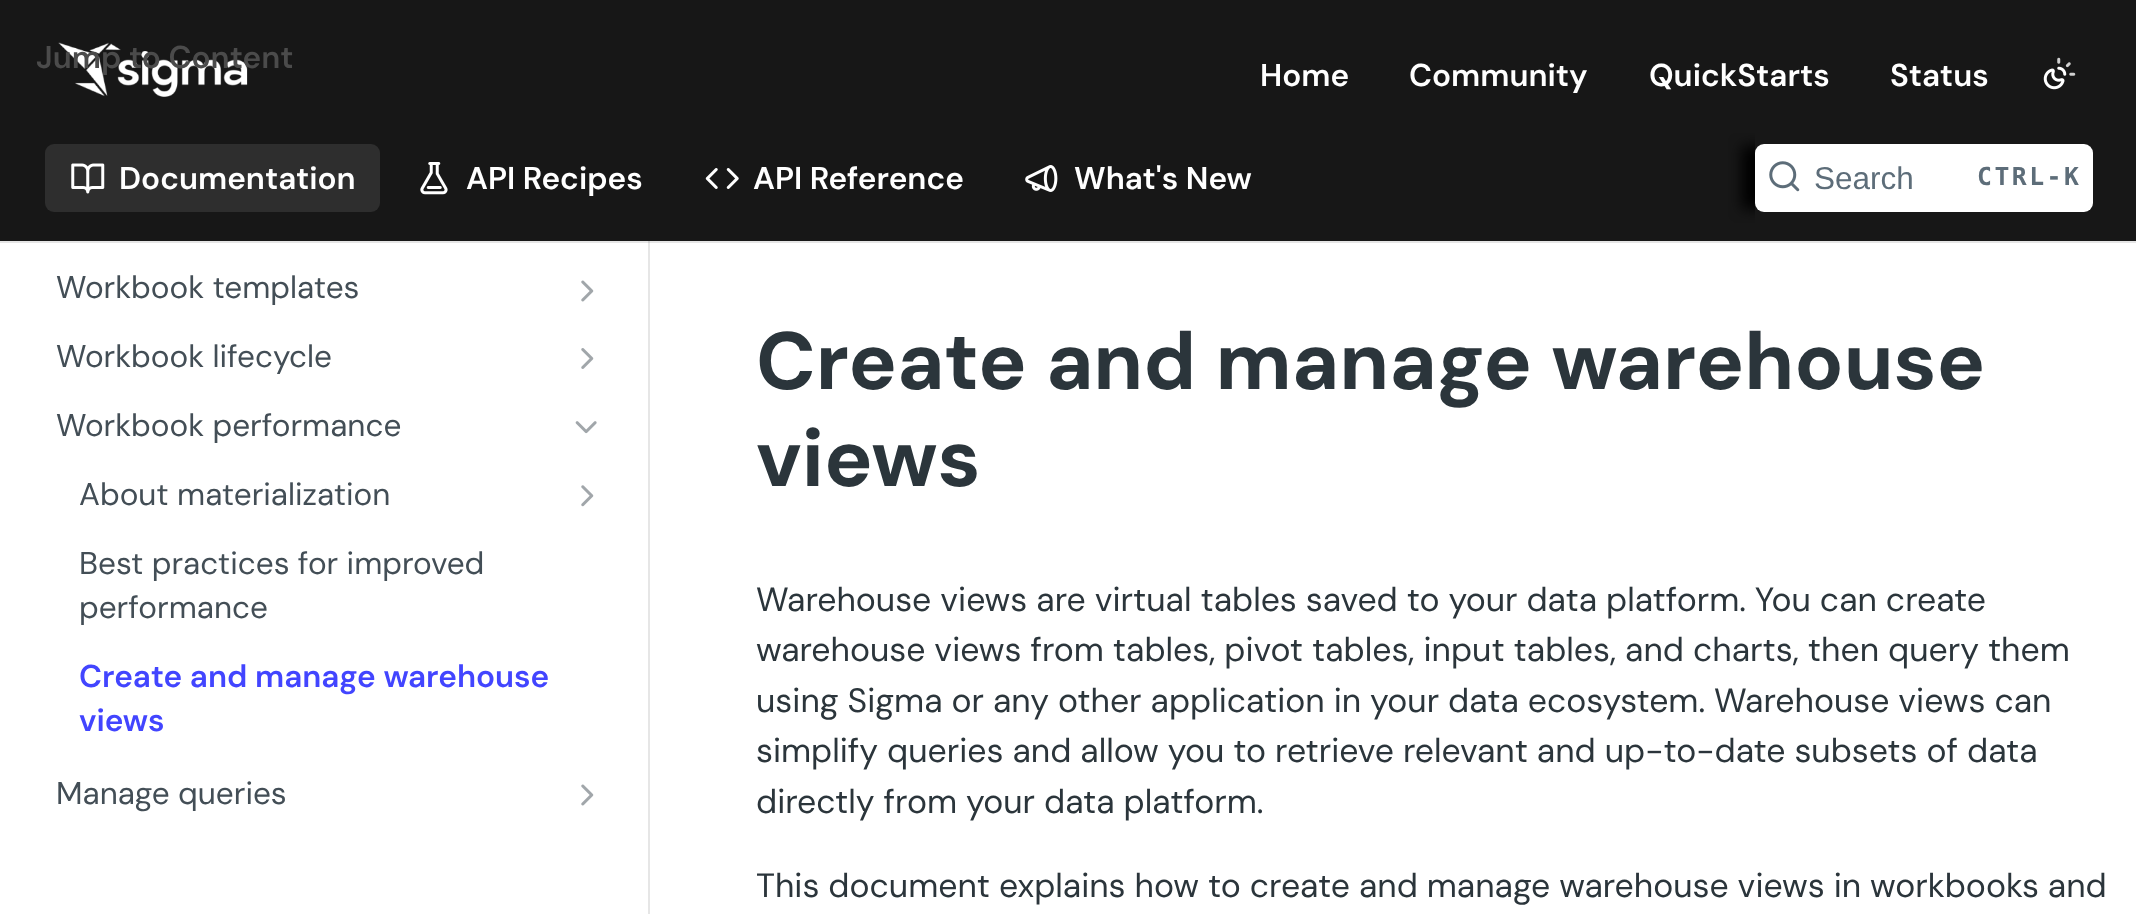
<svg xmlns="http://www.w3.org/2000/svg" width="2136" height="914">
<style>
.a{font:600 31.5px DM Sans;fill:#4b4b4b}
.b{font:600 31.5px DM Sans;fill:#fff}
.c{font:31.5px Liberation Sans;fill:#5d6d79}
.d{font:bold 24.75px DejaVu Sans Mono;letter-spacing:2.5px;fill:#5d6d79}
.e{font:31.5px DM Sans;fill:#434e56}
.f{font:600 31.5px DM Sans;fill:#4245ff}
.g{font:bold 81px DM Sans;fill:#2b353b}
.h{font:33.75px DM Sans;fill:#2b353b}
</style>
<defs>
<clipPath id="clip1"><path d="M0 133h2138v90H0z"/></clipPath>
<clipPath id="clip2"><path d="M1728 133h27v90H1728z"/></clipPath>
</defs>
<rect width="100%" height="100%" fill="#fff"/>
<path fill="#e6e6e6" d="M2 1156v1h648v-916h-2v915z"/>
<path fill="#0000001a" d="M0 241v2h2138v-241v239z"/>
<path fill="#171717" d="M0 0h2136v241H0z"/>
<image href="1.png" x="58" y="42" width="190" height="55"/>
<image href="2.png" x="2043" y="57" width="33" height="33"/>
<rect fill="#2e2e2e" x="45" y="144" width="335" height="68" rx="9"/>
<image href="3.png" x="71" y="163" width="34" height="31"/>
<image href="4.png" x="420" y="162" width="28" height="33"/>
<image href="5.png" x="705" y="168" width="34" height="21"/>
<image href="6.png" x="1025" y="165" width="33" height="27"/>
<g clip-path="url(#clip1)">
<g clip-path="url(#clip2)">
<path fill="#000" filter="blur(7px)" d="M1742 146h355v63H1742z"/>
</g>
</g>
<rect fill="#fff" x="1755" y="144" width="338" height="68" rx="9"/>
<image href="7.png" x="1769" y="161" width="31" height="31"/>
<image href="8.png" x="581" y="280" width="13" height="22"/>
<image href="9.png" x="581" y="348" width="13" height="21"/>
<image href="10.png" x="575" y="421" width="22" height="13"/>
<image href="11.png" x="581" y="485" width="13" height="22"/>
<image href="8.png" x="581" y="784" width="13" height="22"/>
<text class="a" x="36" y="68">Jump to Content</text>
<text class="b" x="1260" y="86">Home</text>
<text class="b" x="1409" y="86">Community</text>
<text class="b" x="1649" y="86">QuickStarts</text>
<text class="b" x="1890" y="86">Status</text>
<text class="b" x="119" y="189">Documentation</text>
<text class="b" x="466" y="189">API Recipes</text>
<text class="b" x="753" y="189">API Reference</text>
<text class="b" x="1074" y="189">What's New</text>
<text class="c" x="1814" y="189">Search</text>
<text class="d" x="1977" y="185">CTRL-K</text>
<text class="e" x="56" y="298">Workbook templates</text>
<text class="e" x="56" y="367">Workbook lifecycle</text>
<text class="e" x="56" y="436">Workbook performance</text>
<text class="e" x="79" y="505">About materialization</text>
<text class="e" x="79" y="574">Best practices for improved</text>
<text class="e" x="79" y="618">performance</text>
<text class="f" x="79" y="687">Create and manage warehouse</text>
<text class="f" x="79" y="731">views</text>
<text class="e" x="56" y="804">Manage queries</text>
<text class="g" x="756" y="389">Create and manage warehouse</text>
<text class="g" x="756" y="486">views</text>
<text class="h" x="756" y="611">Warehouse views are virtual tables saved to your data platform. You can create</text>
<text class="h" x="756" y="661">warehouse views from tables, pivot tables, input tables, and charts, then query them</text>
<text class="h" x="756" y="712">using Sigma or any other application in your data ecosystem. Warehouse views can</text>
<text class="h" x="756" y="762">simplify queries and allow you to retrieve relevant and up-to-date subsets of data</text>
<text class="h" x="756" y="813">directly from your data platform.</text>
<text class="h" x="756" y="897">This document explains how to create and manage warehouse views in workbooks and</text>
</svg>
